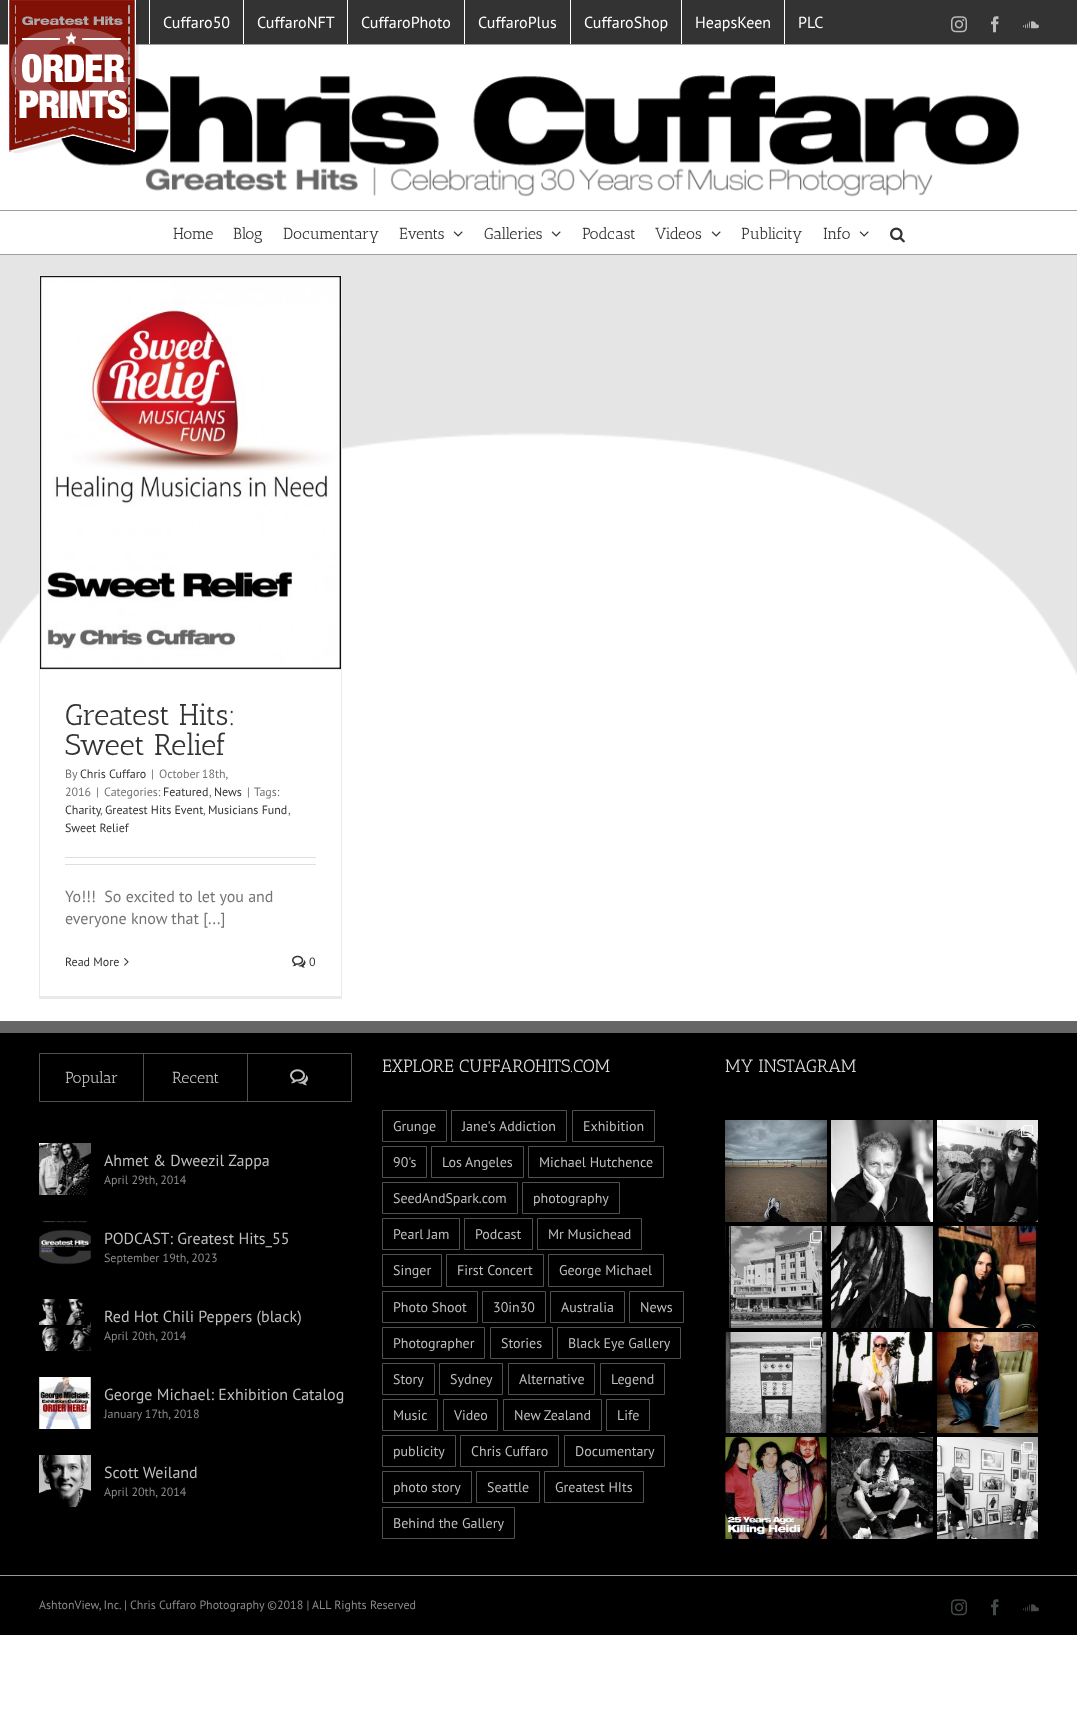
<svg xmlns="http://www.w3.org/2000/svg" width="1077" height="1726">
<style>
.a{font:16px PT Sans;fill:#fff}
.b{font:16px Antic Slab;fill:#333}
.c{font:30px Antic Slab;fill:#333}
.d{font:12px PT Sans;fill:#747474}
.e{font:12px PT Sans;fill:#333}
.f{font:16px PT Sans;fill:#747474}
.g{font:18px Antic Slab;fill:#ddd}
.h{font:14px PT Sans;fill:#bfbfbf}
.i{font:16px Antic Slab;fill:#bfbfbf}
.j{font:16px PT Sans;fill:#bfbfbf}
.k{font:12px PT Sans;fill:#8c8989}
</style>
<rect width="100%" height="100%" fill="#fff"/>
<path fill="#333" d="M0 0h1077v44H0z"/>
<path fill="#9e9e9e" d="M0 44h1077v1H0z"/>
<image href="5.png" x="61" y="75" width="959" height="122"/>
<image href="1.png" x="8" y="0" width="131" height="153"/>
<path fill="#fff" d="M149 0h1v44H149z"/>
<path fill="#fff" d="M243 0h1v44H243z"/>
<path fill="#fff" d="M347 0h1v44H347z"/>
<path fill="#fff" d="M464 0h1v44H464z"/>
<path fill="#fff" d="M570 0h1v44H570z"/>
<path fill="#fff" d="M681 0h1v44H681z"/>
<path fill="#fff" d="M784 0h1v44H784z"/>
<image href="2.png" x="951" y="16" width="16" height="17"/>
<image href="3.png" x="991" y="16" width="8" height="17"/>
<image href="4.png" x="1023" y="21" width="16" height="8"/>
<path fill="#9e9e9e" d="M0 210h1077v1H0z"/>
<path fill="#9e9e9e" d="M0 254h1077v1H0z"/>
<image href="6.png" x="453" y="231" width="10" height="6"/>
<image href="6.png" x="551" y="231" width="10" height="6"/>
<image href="6.png" x="711" y="231" width="10" height="6"/>
<image href="6.png" x="859" y="231" width="10" height="6"/>
<image href="7.png" x="890" y="227" width="15" height="16"/>
<image href="8.png" x="0" y="255" width="1077" height="420"/>
<path fill="#ebeaea" d="M39 275h303v1H39z"/>
<path fill="#ebeaea" d="M341 275h1v724H341z"/>
<path fill="#ebeaea" d="M39 996h303v3H39z"/>
<path fill="#ebeaea" d="M39 275h1v724H39z"/>
<path fill="#ebeaea" d="M40 669h301v1H40z"/>
<image href="9.png" x="40" y="276" width="301" height="393"/>
<path fill="#e0dede" d="M65 857h251v1H65z"/>
<path fill="#e0dede" d="M65 864h251v1H65z"/>
<image href="10.png" x="124" y="958" width="5" height="8"/>
<image href="11.png" x="292" y="955" width="14" height="13"/>
<path fill="#000" d="M0 1033h1077v542H0z"/>
<path fill="#666" d="M0 1021h1077v12H0z"/>
<path fill="none" stroke="#505152" d="M382.5 1110.5h64v31H382.5z"/>
<path fill="none" stroke="#505152" d="M451.5 1110.5h115v31H451.5z"/>
<path fill="none" stroke="#505152" d="M572.5 1110.5h82v31H572.5z"/>
<path fill="none" stroke="#505152" d="M382.5 1146.5h44v31H382.5z"/>
<path fill="none" stroke="#505152" d="M431.5 1146.5h92v31H431.5z"/>
<path fill="none" stroke="#505152" d="M528.5 1146.5h135v31H528.5z"/>
<path fill="none" stroke="#505152" d="M382.5 1182.5h135v31H382.5z"/>
<path fill="none" stroke="#505152" d="M522.5 1182.5h97v31H522.5z"/>
<path fill="none" stroke="#505152" d="M382.5 1218.5h77v31H382.5z"/>
<path fill="none" stroke="#505152" d="M464.5 1218.5h68v31H464.5z"/>
<path fill="none" stroke="#505152" d="M537.5 1218.5h104v31H537.5z"/>
<path fill="none" stroke="#505152" d="M382.5 1254.5h59v32H382.5z"/>
<path fill="none" stroke="#505152" d="M446.5 1254.5h97v32H446.5z"/>
<path fill="none" stroke="#505152" d="M548.5 1254.5h115v32H548.5z"/>
<path fill="none" stroke="#505152" d="M382.5 1291.5h95v31H382.5z"/>
<path fill="none" stroke="#505152" d="M482.5 1291.5h63v31H482.5z"/>
<path fill="none" stroke="#505152" d="M550.5 1291.5h74v31H550.5z"/>
<path fill="none" stroke="#505152" d="M629.5 1291.5h54v31H629.5z"/>
<path fill="none" stroke="#505152" d="M382.5 1327.5h102v31H382.5z"/>
<path fill="none" stroke="#505152" d="M490.5 1327.5h62v31H490.5z"/>
<path fill="none" stroke="#505152" d="M557.5 1327.5h123v31H557.5z"/>
<path fill="none" stroke="#505152" d="M382.5 1363.5h52v31H382.5z"/>
<path fill="none" stroke="#505152" d="M439.5 1363.5h63v31H439.5z"/>
<path fill="none" stroke="#505152" d="M508.5 1363.5h86v31H508.5z"/>
<path fill="none" stroke="#505152" d="M600.5 1363.5h64v31H600.5z"/>
<path fill="none" stroke="#505152" d="M382.5 1399.5h55v31H382.5z"/>
<path fill="none" stroke="#505152" d="M443.5 1399.5h54v31H443.5z"/>
<path fill="none" stroke="#505152" d="M503.5 1399.5h98v31H503.5z"/>
<path fill="none" stroke="#505152" d="M606.5 1399.5h43v31H606.5z"/>
<path fill="none" stroke="#505152" d="M382.5 1435.5h73v31H382.5z"/>
<path fill="none" stroke="#505152" d="M460.5 1435.5h98v31H460.5z"/>
<path fill="none" stroke="#505152" d="M564.5 1435.5h100v31H564.5z"/>
<path fill="none" stroke="#505152" d="M382.5 1471.5h89v31H382.5z"/>
<path fill="none" stroke="#505152" d="M476.5 1471.5h63v31H476.5z"/>
<path fill="none" stroke="#505152" d="M544.5 1471.5h99v31H544.5z"/>
<path fill="none" stroke="#505152" d="M382.5 1507.5h132v31H382.5z"/>
<image href="12.png" x="725" y="1120" width="102" height="102"/>
<image href="13.png" x="831" y="1120" width="102" height="102"/>
<image href="14.png" x="937" y="1120" width="101" height="102"/>
<image href="15.png" x="1021" y="1125" width="12" height="12"/>
<image href="16.png" x="725" y="1226" width="102" height="102"/>
<image href="17.png" x="810" y="1231" width="12" height="12"/>
<image href="18.png" x="831" y="1226" width="102" height="102"/>
<image href="19.png" x="937" y="1226" width="101" height="102"/>
<image href="20.png" x="725" y="1332" width="102" height="101"/>
<image href="21.png" x="810" y="1337" width="12" height="12"/>
<image href="22.png" x="831" y="1332" width="102" height="101"/>
<image href="23.png" x="937" y="1332" width="101" height="101"/>
<image href="24.png" x="725" y="1437" width="102" height="102"/>
<image href="25.png" x="831" y="1437" width="102" height="102"/>
<image href="26.png" x="937" y="1437" width="101" height="102"/>
<image href="27.png" x="1021" y="1442" width="12" height="12"/>
<path fill="none" stroke="#505152" d="M39.5 1053.5h312v48H39.5z"/>
<path fill="#505152" d="M143 1054h1v47H143z"/>
<path fill="#505152" d="M247 1054h1v47H247z"/>
<image href="28.png" x="290" y="1069" width="18" height="17"/>
<image href="29.png" x="39" y="1143" width="52" height="52"/>
<image href="30.png" x="39" y="1221" width="52" height="44"/>
<image href="31.png" x="39" y="1299" width="52" height="52"/>
<image href="32.png" x="39" y="1377" width="52" height="52"/>
<image href="33.png" x="39" y="1455" width="52" height="52"/>
<path fill="#000" d="M0 1576h1077v59H0z"/>
<path fill="#999" d="M0 1575h1077v1H0z"/>
<image href="34.png" x="951" y="1599" width="16" height="17"/>
<image href="35.png" x="991" y="1599" width="8" height="17"/>
<image href="36.png" x="1023" y="1604" width="16" height="8"/>
<text class="a" x="163" y="28">Cuffaro50</text>
<text class="a" x="257" y="28">CuffaroNFT</text>
<text class="a" x="361" y="28">CuffaroPhoto</text>
<text class="a" x="478" y="28">CuffaroPlus</text>
<text class="a" x="584" y="28">CuffaroShop</text>
<text class="a" x="695" y="28">HeapsKeen</text>
<text class="a" x="798" y="28">PLC</text>
<text class="b" x="173" y="239">Home</text>
<text class="b" x="233" y="239">Blog</text>
<text class="b" x="283" y="239">Documentary</text>
<text class="b" x="399" y="239">Events</text>
<text class="b" x="484" y="239">Galleries</text>
<text class="b" x="582" y="239">Podcast</text>
<text class="b" x="655" y="239">Videos</text>
<text class="b" x="741" y="239">Publicity</text>
<text class="b" x="823" y="239">Info</text>
<text class="c" x="65" y="725">Greatest Hits:</text>
<text class="c" x="65" y="755">Sweet Relief</text>
<text class="d" x="65" y="778">By</text>
<text class="e" x="80" y="778">Chris Cuffaro</text>
<text class="d" x="151" y="778">|</text>
<text class="d" x="159" y="778" word-spacing="-1">October 18th,</text>
<text class="d" x="65" y="796">2016</text>
<text class="d" x="96" y="796">|</text>
<text class="d" x="104" y="796">Categories:</text>
<text class="e" x="163" y="796">Featured</text>
<text class="d" x="209" y="796">,</text>
<text class="e" x="214" y="796">News</text>
<text class="d" x="247" y="796">|</text>
<text class="d" x="254" y="796">Tags:</text>
<text class="e" x="65" y="814">Charity</text>
<text class="d" x="100" y="814">,</text>
<text class="e" x="105" y="814">Greatest Hits Event</text>
<text class="d" x="203" y="814">,</text>
<text class="e" x="208" y="814">Musicians Fund</text>
<text class="d" x="288" y="814">,</text>
<text class="e" x="65" y="832">Sweet Relief</text>
<text class="f" xml:space="preserve" x="65" y="902">Yo!!!  So excited to let you and</text>
<text class="f" x="65" y="924">everyone know that [...]</text>
<text class="e" x="65" y="966">Read More</text>
<text class="e" x="309" y="966">0</text>
<text class="g" x="382" y="1072">EXPLORE CUFFAROHITS.COM</text>
<text class="h" x="393" y="1131">Grunge</text>
<text class="h" x="462" y="1131">Jane's Addiction</text>
<text class="h" x="583" y="1131">Exhibition</text>
<text class="h" x="393" y="1167">90's</text>
<text class="h" x="442" y="1167">Los Angeles</text>
<text class="h" x="539" y="1167">Michael Hutchence</text>
<text class="h" x="393" y="1203">SeedAndSpark.com</text>
<text class="h" x="533" y="1203">photography</text>
<text class="h" x="393" y="1239">Pearl Jam</text>
<text class="h" x="475" y="1239">Podcast</text>
<text class="h" x="548" y="1239">Mr Musichead</text>
<text class="h" x="393" y="1275">Singer</text>
<text class="h" x="457" y="1275">First Concert</text>
<text class="h" x="559" y="1275">George Michael</text>
<text class="h" x="393" y="1312">Photo Shoot</text>
<text class="h" x="493" y="1312">30in30</text>
<text class="h" x="561" y="1312">Australia</text>
<text class="h" x="640" y="1312">News</text>
<text class="h" x="393" y="1348">Photographer</text>
<text class="h" x="501" y="1348">Stories</text>
<text class="h" x="568" y="1348">Black Eye Gallery</text>
<text class="h" x="393" y="1384">Story</text>
<text class="h" x="450" y="1384">Sydney</text>
<text class="h" x="519" y="1384">Alternative</text>
<text class="h" x="611" y="1384">Legend</text>
<text class="h" x="393" y="1420">Music</text>
<text class="h" x="454" y="1420">Video</text>
<text class="h" x="514" y="1420">New Zealand</text>
<text class="h" x="617" y="1420">Life</text>
<text class="h" x="393" y="1456">publicity</text>
<text class="h" x="471" y="1456">Chris Cuffaro</text>
<text class="h" x="575" y="1456">Documentary</text>
<text class="h" x="393" y="1492">photo story</text>
<text class="h" x="487" y="1492">Seattle</text>
<text class="h" x="555" y="1492">Greatest HIts</text>
<text class="h" x="393" y="1528">Behind the Gallery</text>
<text class="g" x="725" y="1072">MY INSTAGRAM</text>
<text class="i" x="65" y="1083">Popular</text>
<text class="i" x="172" y="1083">Recent</text>
<text class="j" x="104" y="1166">Ahmet &amp; Dweezil Zappa</text>
<text class="k" x="104" y="1184">April 29th, 2014</text>
<text class="j" x="104" y="1244">PODCAST: Greatest Hits_55</text>
<text class="k" x="104" y="1262">September 19th, 2023</text>
<text class="j" x="104" y="1322">Red Hot Chili Peppers (black)</text>
<text class="k" x="104" y="1340">April 20th, 2014</text>
<text class="j" x="104" y="1400">George Michael: Exhibition Catalog</text>
<text class="k" x="104" y="1418">January 17th, 2018</text>
<text class="j" x="104" y="1478">Scott Weiland</text>
<text class="k" x="104" y="1496">April 20th, 2014</text>
<text class="k" x="39" y="1609">AshtonView, Inc. | Chris Cuffaro Photography ©2018 | ALL Rights Reserved</text>
</svg>
